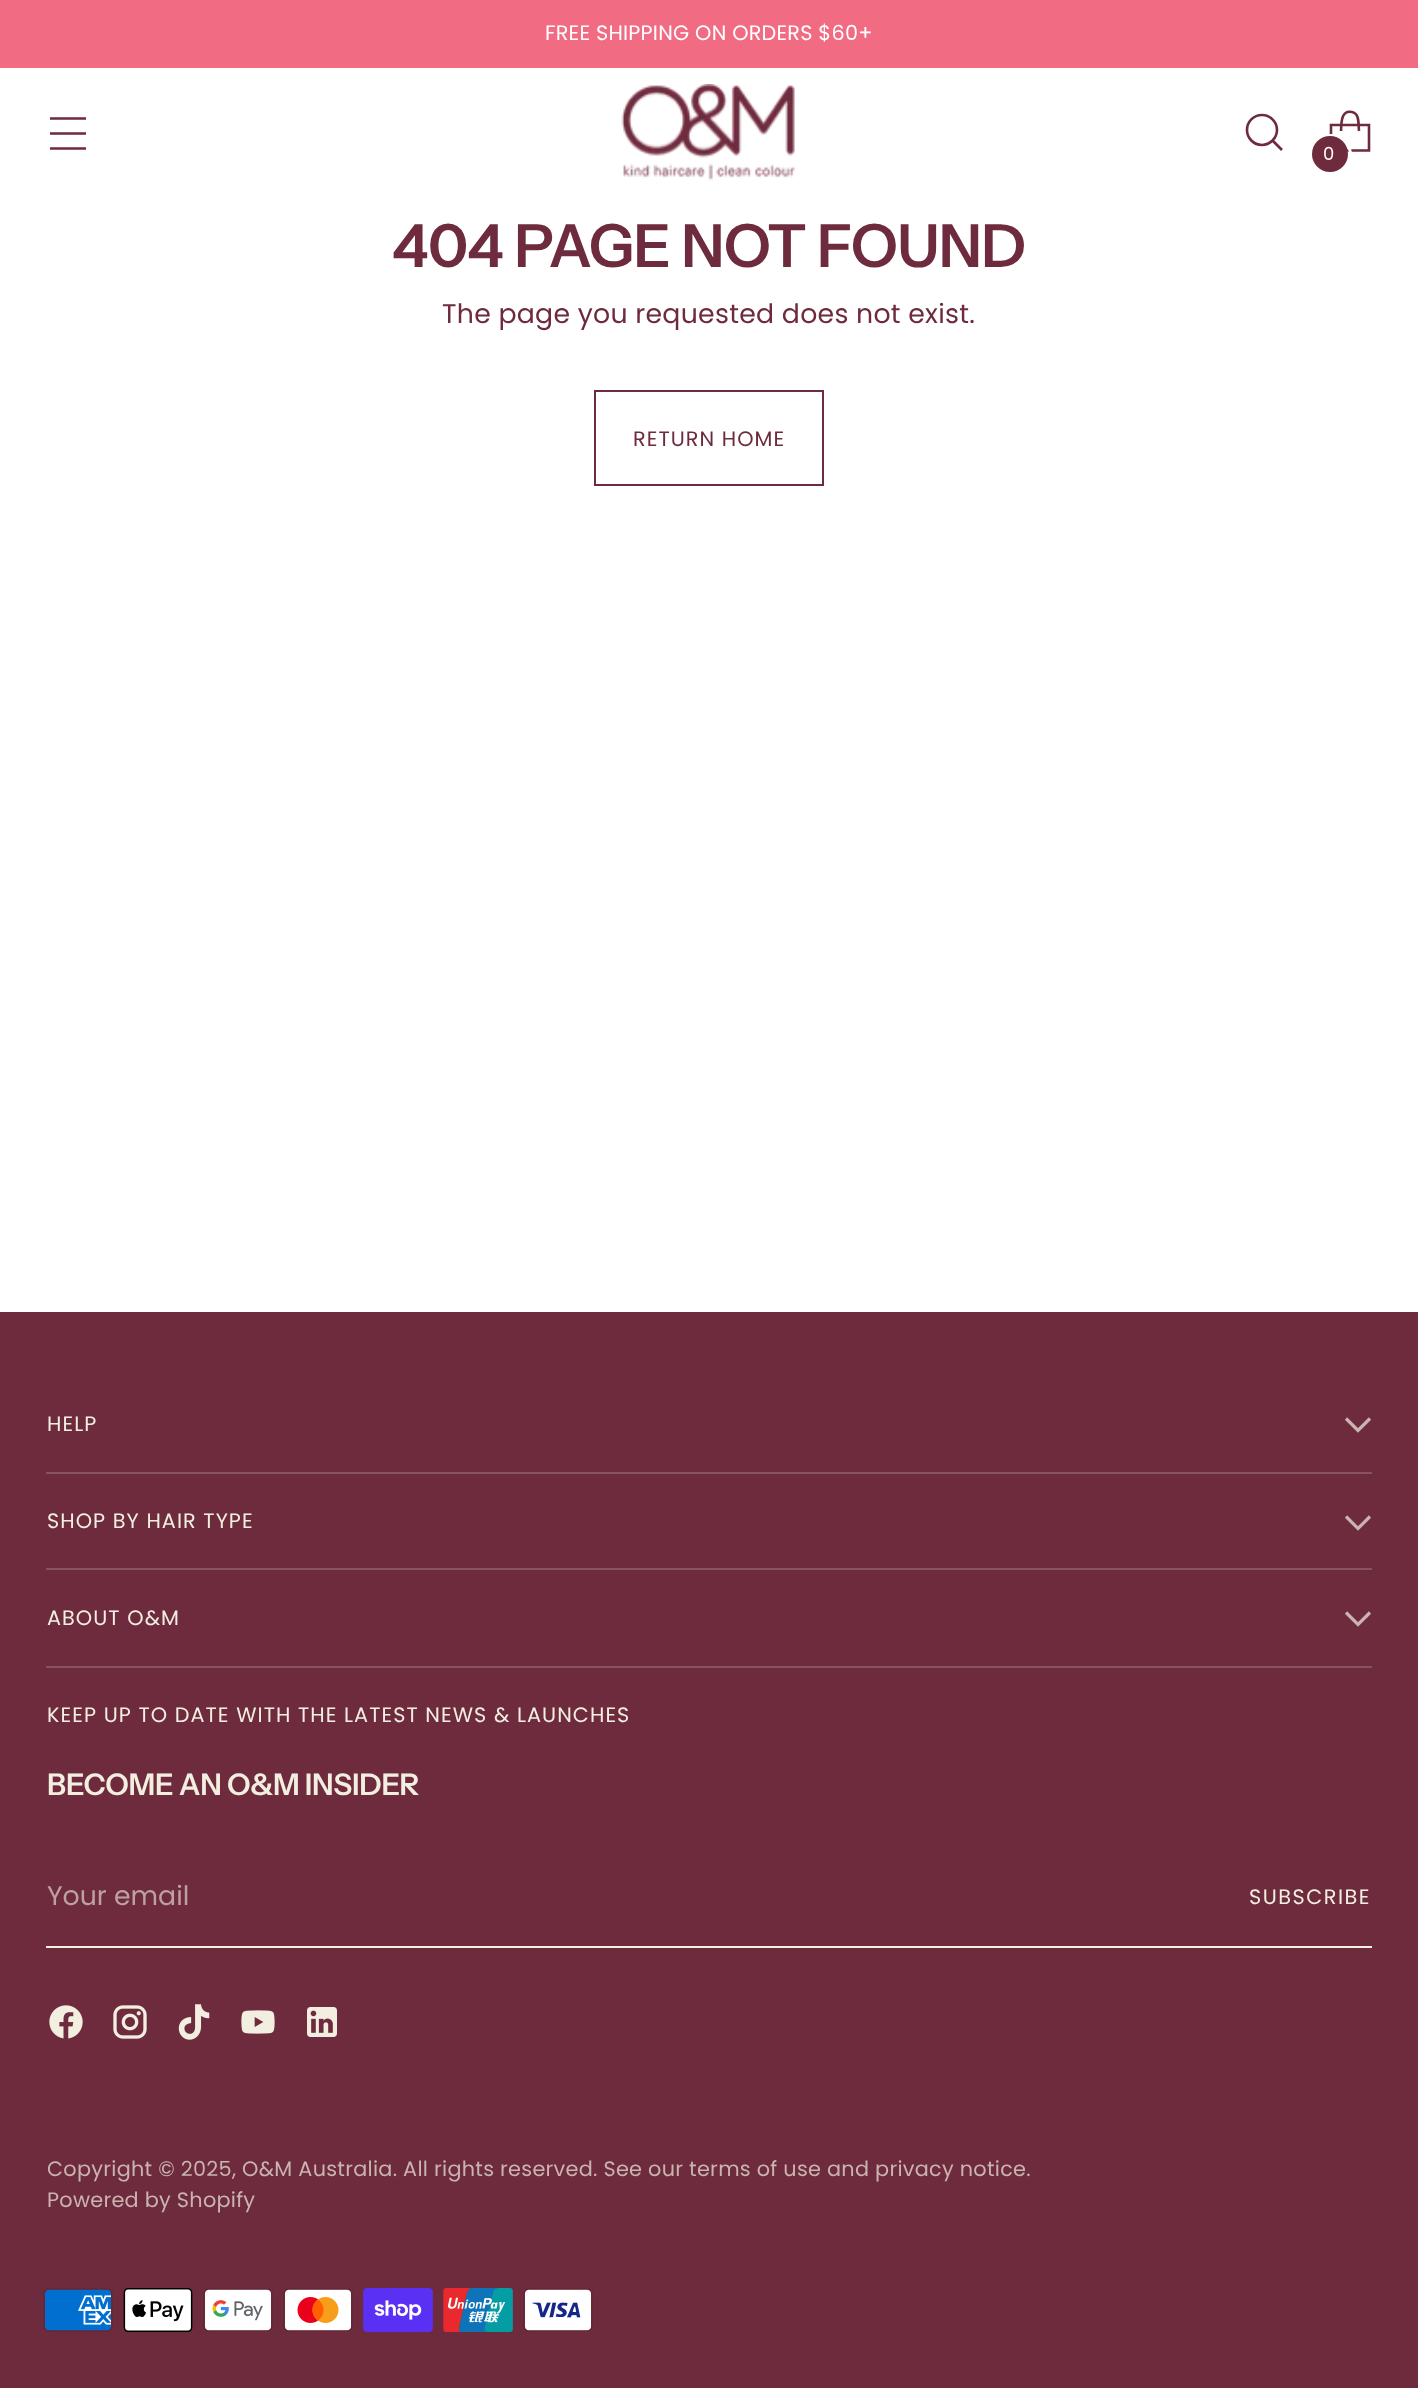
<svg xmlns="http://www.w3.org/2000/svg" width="1418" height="2388">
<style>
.a{font:20.8px Poppins;letter-spacing:0.2px;fill:#fff}
.b{font:18px Poppins;letter-spacing:0.27px;fill:#fff}
.c{font:600 59.5px Instrument Sans;letter-spacing:-0.6px;fill:#6e2b3d}
.d{font:26.75px Poppins;letter-spacing:0.27px;fill:#6e2b3d}
.e{font:20.8px Poppins;letter-spacing:1.05px;fill:#6e2b3d}
.f{font:20.8px Poppins;letter-spacing:1.05px;fill:#f2eee0}
.g{font:600 29.75px Instrument Sans;letter-spacing:-0.3px;fill:#f2eee0}
.h{font:26.75px Poppins;fill:#bda09f}
.i{font:20.8px Poppins;letter-spacing:1.5px;fill:#f2eee0}
.j{font:20.8px Poppins;letter-spacing:0.27px;fill:#cab4af}
</style>
<rect width="100%" height="100%" fill="#fff"/>
<path fill="#f16c82" d="M0 0h1418v68H0z"/>
<path fill="none" stroke="#6e2b3d" stroke-width="2.6" d="M50 133.5h36m-36-15h36m-36 30h36"/>
<image href="1.png" x="621" y="84" width="174" height="97"/>
<path fill="none" stroke="#6e2b3d" stroke-width="2.6" stroke-linecap="round" d="M1262 145c8 0 15-7 15-15c0-8.5-7-15-15-15c-8.5 0-15 6.5-15 15c0 8 6.5 15 15 15z"/>
<path fill="none" stroke="#6e2b3d" stroke-width="2.6" d="M1272.5 140.5l9.5 9.5"/>
<path fill="none" stroke="#6e2b3d" stroke-width="2.6" stroke-linejoin="bevel" d="M1359 131c-.5-4.5 0-9.5-1.5-14c-1-2.5-3-4.5-5.5-5c-11.5-2.5-10.5 12-11 19"/>
<path fill="none" stroke="#6e2b3d" stroke-width="2.6" d="M1369 150.5v-25.5h-38v25.5z"/>
<circle fill="none" stroke="#fff" stroke-width="3" cx="1331" cy="155" r="19.5"/>
<circle fill="#6e2b3d" cx="1330" cy="154" r="18"/>
<path fill="none" stroke="#6e2b3d" stroke-width="2" d="M595 391h228v94H595z"/>
<path fill="#6e2b3d" d="M0 1312h1418v1076H0z"/>
<path fill="#88525e" d="M46 1472h1326v2H46z"/>
<path fill="none" stroke="#cab4af" stroke-width="3.2" d="M1346 1418.5l12 12l12-12"/>
<path fill="#88525e" d="M46 1568h1326v2H46z"/>
<path fill="none" stroke="#cab4af" stroke-width="3.2" d="M1346 1516.5l12 12l12-12"/>
<path fill="#88525e" d="M46 1666h1326v2H46z"/>
<path fill="none" stroke="#cab4af" stroke-width="3.2" d="M1346 1612.5l12 12l12-12"/>
<path fill="#f2eee0" d="M46 1946h1326v2H46z"/>
<image href="2.png" x="49" y="2005" width="34" height="34"/>
<image href="3.png" x="113" y="2005" width="34" height="34"/>
<image href="4.png" x="178" y="2004" width="32" height="36"/>
<image href="5.png" x="241" y="2010" width="34" height="24"/>
<image href="6.png" x="307" y="2007" width="30" height="30"/>
<image href="7.png" x="43" y="2288" width="70" height="44"/>
<image href="8.png" x="123" y="2288" width="70" height="44"/>
<image href="9.png" x="203" y="2288" width="70" height="44"/>
<image href="10.png" x="283" y="2288" width="70" height="44"/>
<image href="11.png" x="363" y="2288" width="70" height="44"/>
<image href="12.png" x="443" y="2288" width="70" height="44"/>
<image href="13.png" x="523" y="2288" width="70" height="44"/>
<text class="a" x="545" y="40">FREE SHIPPING ON ORDERS $60+</text>
<text class="b" x="1323" y="160">0</text>
<text class="c" x="392" y="267">404 PAGE NOT FOUND</text>
<text class="d" x="442" y="323">The page you requested does not exist.</text>
<text class="e" x="633" y="446">RETURN HOME</text>
<text class="f" x="47" y="1431">HELP</text>
<text class="f" x="47" y="1528">SHOP BY HAIR TYPE</text>
<text class="f" x="47" y="1625">ABOUT O&amp;M</text>
<text class="f" x="47" y="1722">KEEP UP TO DATE WITH THE LATEST NEWS &amp; LAUNCHES</text>
<text class="g" x="47" y="1795">BECOME AN O&amp;M INSIDER</text>
<text class="h" x="47" y="1905">Your email</text>
<text class="i" x="1249" y="1904">SUBSCRIBE</text>
<text class="j" x="47" y="2176">Copyright © 2025, O&amp;M Australia. All rights reserved. See our terms of use and privacy notice.</text>
<text class="j" x="47" y="2207">Powered by Shopify</text>
</svg>
